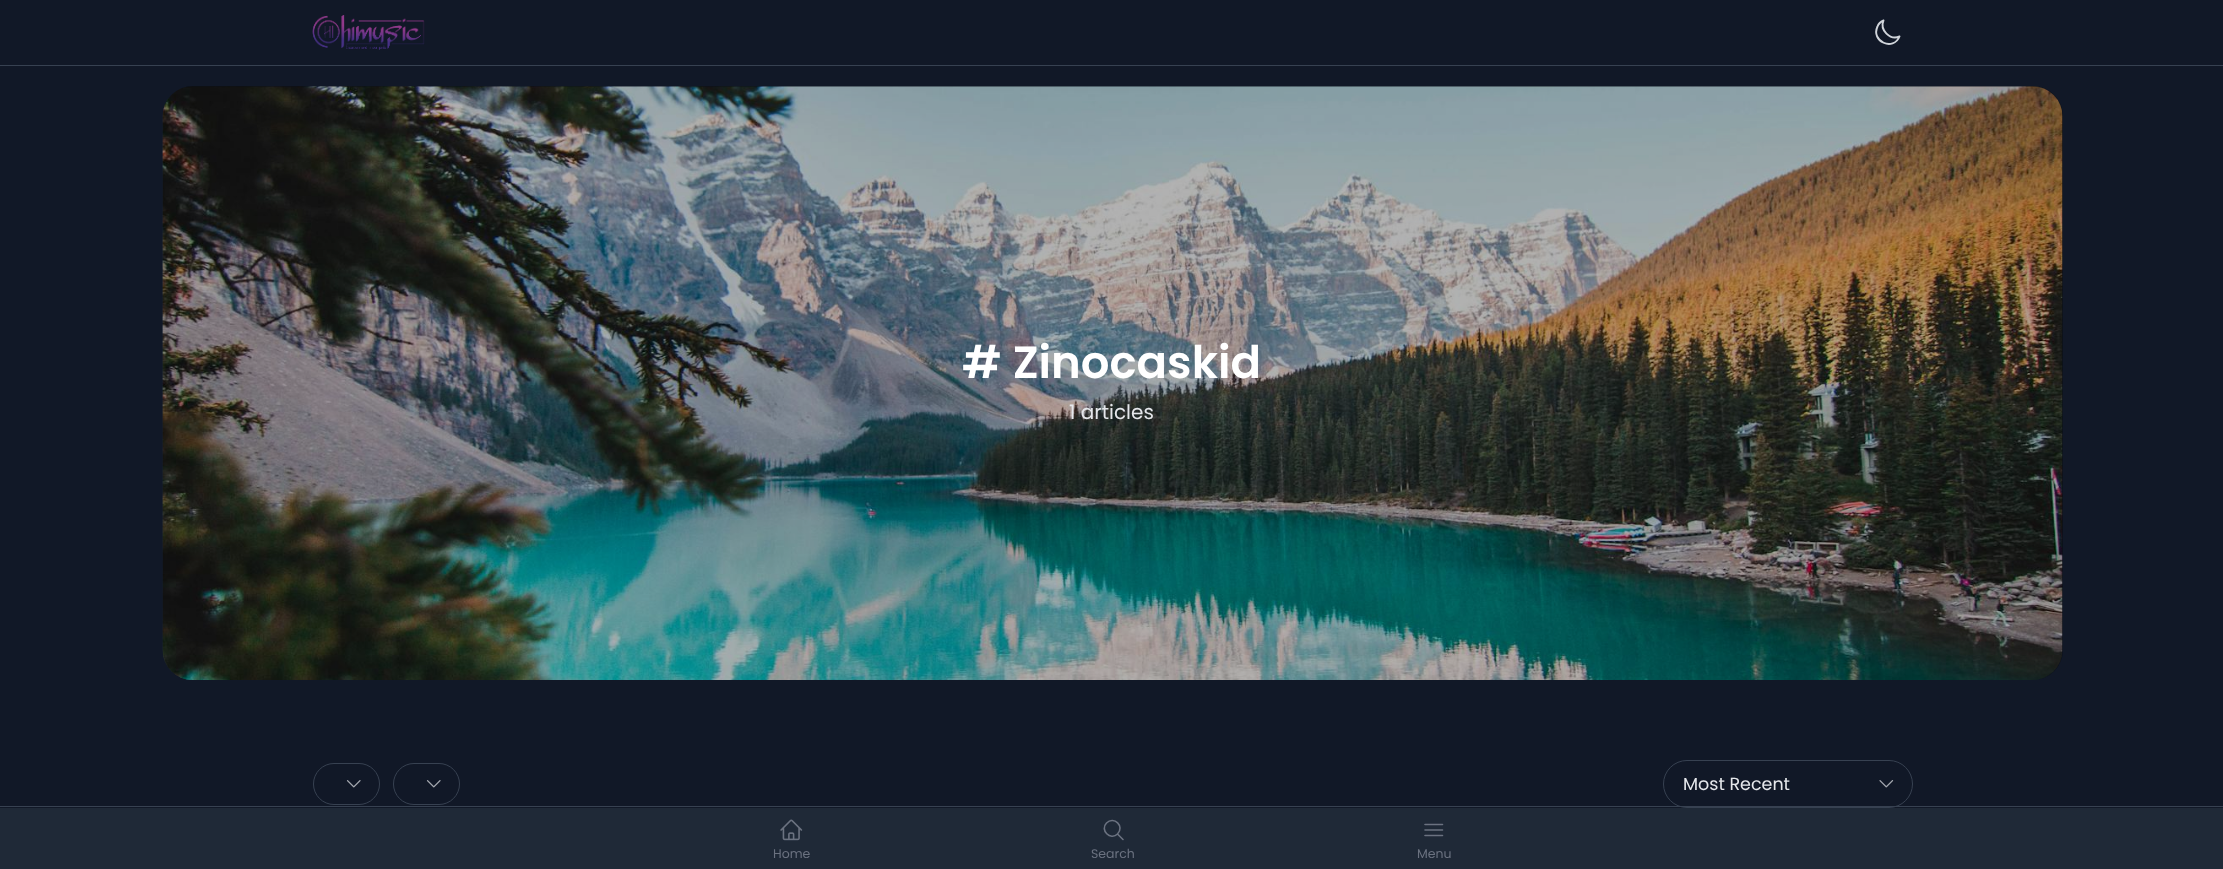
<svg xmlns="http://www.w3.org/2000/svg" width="2223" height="869">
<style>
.a{font:600 45px Poppins;fill:#fff}
.b{font:20px Poppins;fill:#e5e7eb}
.c{font:17.5px Poppins;fill:#e5e7eb}
.d{font:12.5px Poppins;fill:#6b7280}
</style>
<rect width="100%" height="100%" fill="#111827"/>
<path fill="#374151" d="M0 65h2223v1H0z"/>
<image href="1.png" x="312" y="15" width="113" height="35"/>
<path fill="none" stroke="#d1d5db" stroke-width="1.9" stroke-linecap="round" stroke-linejoin="round" d="M1899.5 36.5c-9.5 4-20-6.5-16-16c-2.5 1-5 3-6 6c-7 15 16 25 22 10z"/>
<image href="2.png" x="162" y="86" width="1901" height="594"/>
<rect fill="#0000004d" x="163" y="86" width="1900" height="594" rx="30"/>
<rect fill="none" stroke="#374151" x="313.5" y="763.5" width="66" height="41" rx="20.5"/>
<image href="3.png" x="346" y="780" width="15" height="8"/>
<rect fill="none" stroke="#374151" x="393.5" y="763.5" width="66" height="41" rx="20.5"/>
<image href="3.png" x="426" y="780" width="15" height="8"/>
<rect fill="none" stroke="#374151" x="1663.5" y="760.5" width="249" height="47" rx="23.5"/>
<image href="4.png" x="1879" y="780" width="15" height="8"/>
<path fill="#1f2937" d="M0 808h2223v61H0z"/>
<path fill="#374151" d="M0 806h2223v1H0z"/>
<image href="5.png" x="780" y="819" width="23" height="22"/>
<path fill="none" stroke="#6b7280" stroke-width="1.6" stroke-linecap="round" stroke-linejoin="round" d="M1123 839.5l-5.5-5.5m0 0c7.5-7.5-3.5-18.5-11-11c-7 7 4 18 11 11z"/>
<path fill="none" stroke="#6b7280" stroke-width="1.6" stroke-linecap="round" stroke-linejoin="round" d="M1425 824.5h17.5m-17.5 5.5h17.5m-17.5 5.5h17.5"/>
<text class="a" x="962" y="378"># Zinocaskid</text>
<text class="b" x="1069" y="419">1 articles</text>
<text class="c" x="1683" y="790">Most Recent</text>
<text class="d" x="773" y="858">Home</text>
<text class="d" x="1091" y="858">Search</text>
<text class="d" x="1417" y="858">Menu</text>
</svg>
